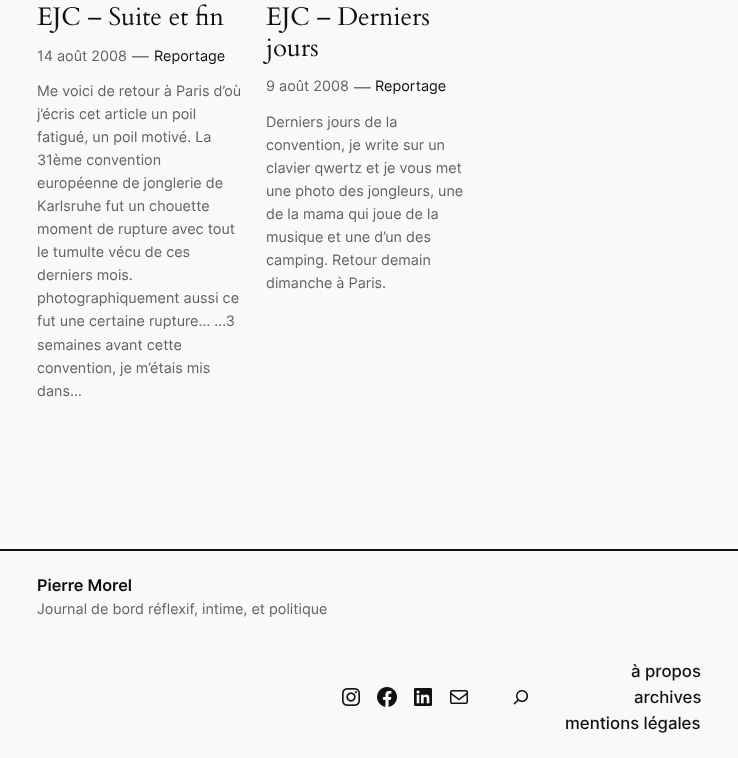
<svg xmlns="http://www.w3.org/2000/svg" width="738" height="758">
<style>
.a{font:14.4px Inter;fill:#636363}
.b{font:16.75px Inter;fill:#636363}
.c{font:14.4px Inter;fill:#111}
.d{font:600 16.25px Inter;fill:#111}
.e{font:500 16.75px Inter;fill:#111}
</style>
<rect width="100%" height="100%" fill="#f9f9f9"/>
<image href="1.png" x="37" y="4" width="187" height="29"/>
<image href="2.png" x="266" y="7" width="163" height="26"/>
<image href="3.png" x="263" y="38" width="55" height="26"/>
<path fill="#111" d="M0 549h738v2H0z"/>
<image href="4.png" x="342" y="688" width="18" height="18"/>
<image href="5.png" x="377" y="687" width="20" height="20"/>
<image href="6.png" x="414" y="688" width="18" height="18"/>
<image href="7.png" x="450" y="690" width="18" height="14"/>
<image href="8.png" x="513" y="690" width="16" height="15"/>
<text class="a" x="37" y="61">14 août 2008</text>
<text class="b" x="132" y="62">—</text>
<text class="c" x="154" y="61">Reportage</text>
<text class="a" x="37" y="96">Me voici de retour à Paris d’où</text>
<text class="a" x="37" y="119">j’écris cet article un poil</text>
<text class="a" x="37" y="142">fatigué, un poil motivé. La</text>
<text class="a" x="37" y="165">31ème convention</text>
<text class="a" x="37" y="188">européenne de jonglerie de</text>
<text class="a" x="37" y="211">Karlsruhe fut un chouette</text>
<text class="a" x="37" y="234">moment de rupture avec tout</text>
<text class="a" x="37" y="257">le tumulte vécu de ces</text>
<text class="a" x="37" y="280">derniers mois.</text>
<text class="a" x="37" y="303">photographiquement aussi ce</text>
<text class="a" x="37" y="326">fut une certaine rupture… …3</text>
<text class="a" x="37" y="350">semaines avant cette</text>
<text class="a" x="37" y="373">convention, je m’étais mis</text>
<text class="a" x="37" y="396">dans…</text>
<text class="a" x="266" y="91">9 août 2008</text>
<text class="b" x="354" y="93">—</text>
<text class="c" x="375" y="91">Reportage</text>
<text class="a" x="266" y="127">Derniers jours de la</text>
<text class="a" x="266" y="150">convention, je write sur un</text>
<text class="a" x="266" y="173">clavier qwertz et je vous met</text>
<text class="a" x="266" y="196">une photo des jongleurs, une</text>
<text class="a" x="266" y="219">de la mama qui joue de la</text>
<text class="a" x="266" y="242">musique et une d’un des</text>
<text class="a" x="266" y="265">camping. Retour demain</text>
<text class="a" x="266" y="288">dimanche à Paris.</text>
<text class="d" x="37" y="591">Pierre Morel</text>
<text class="a" x="37" y="614">Journal de bord réflexif, intime, et politique</text>
<text class="e" x="631" y="677">à propos</text>
<text class="e" x="634" y="703">archives</text>
<text class="e" x="565" y="729">mentions légales</text>
</svg>
